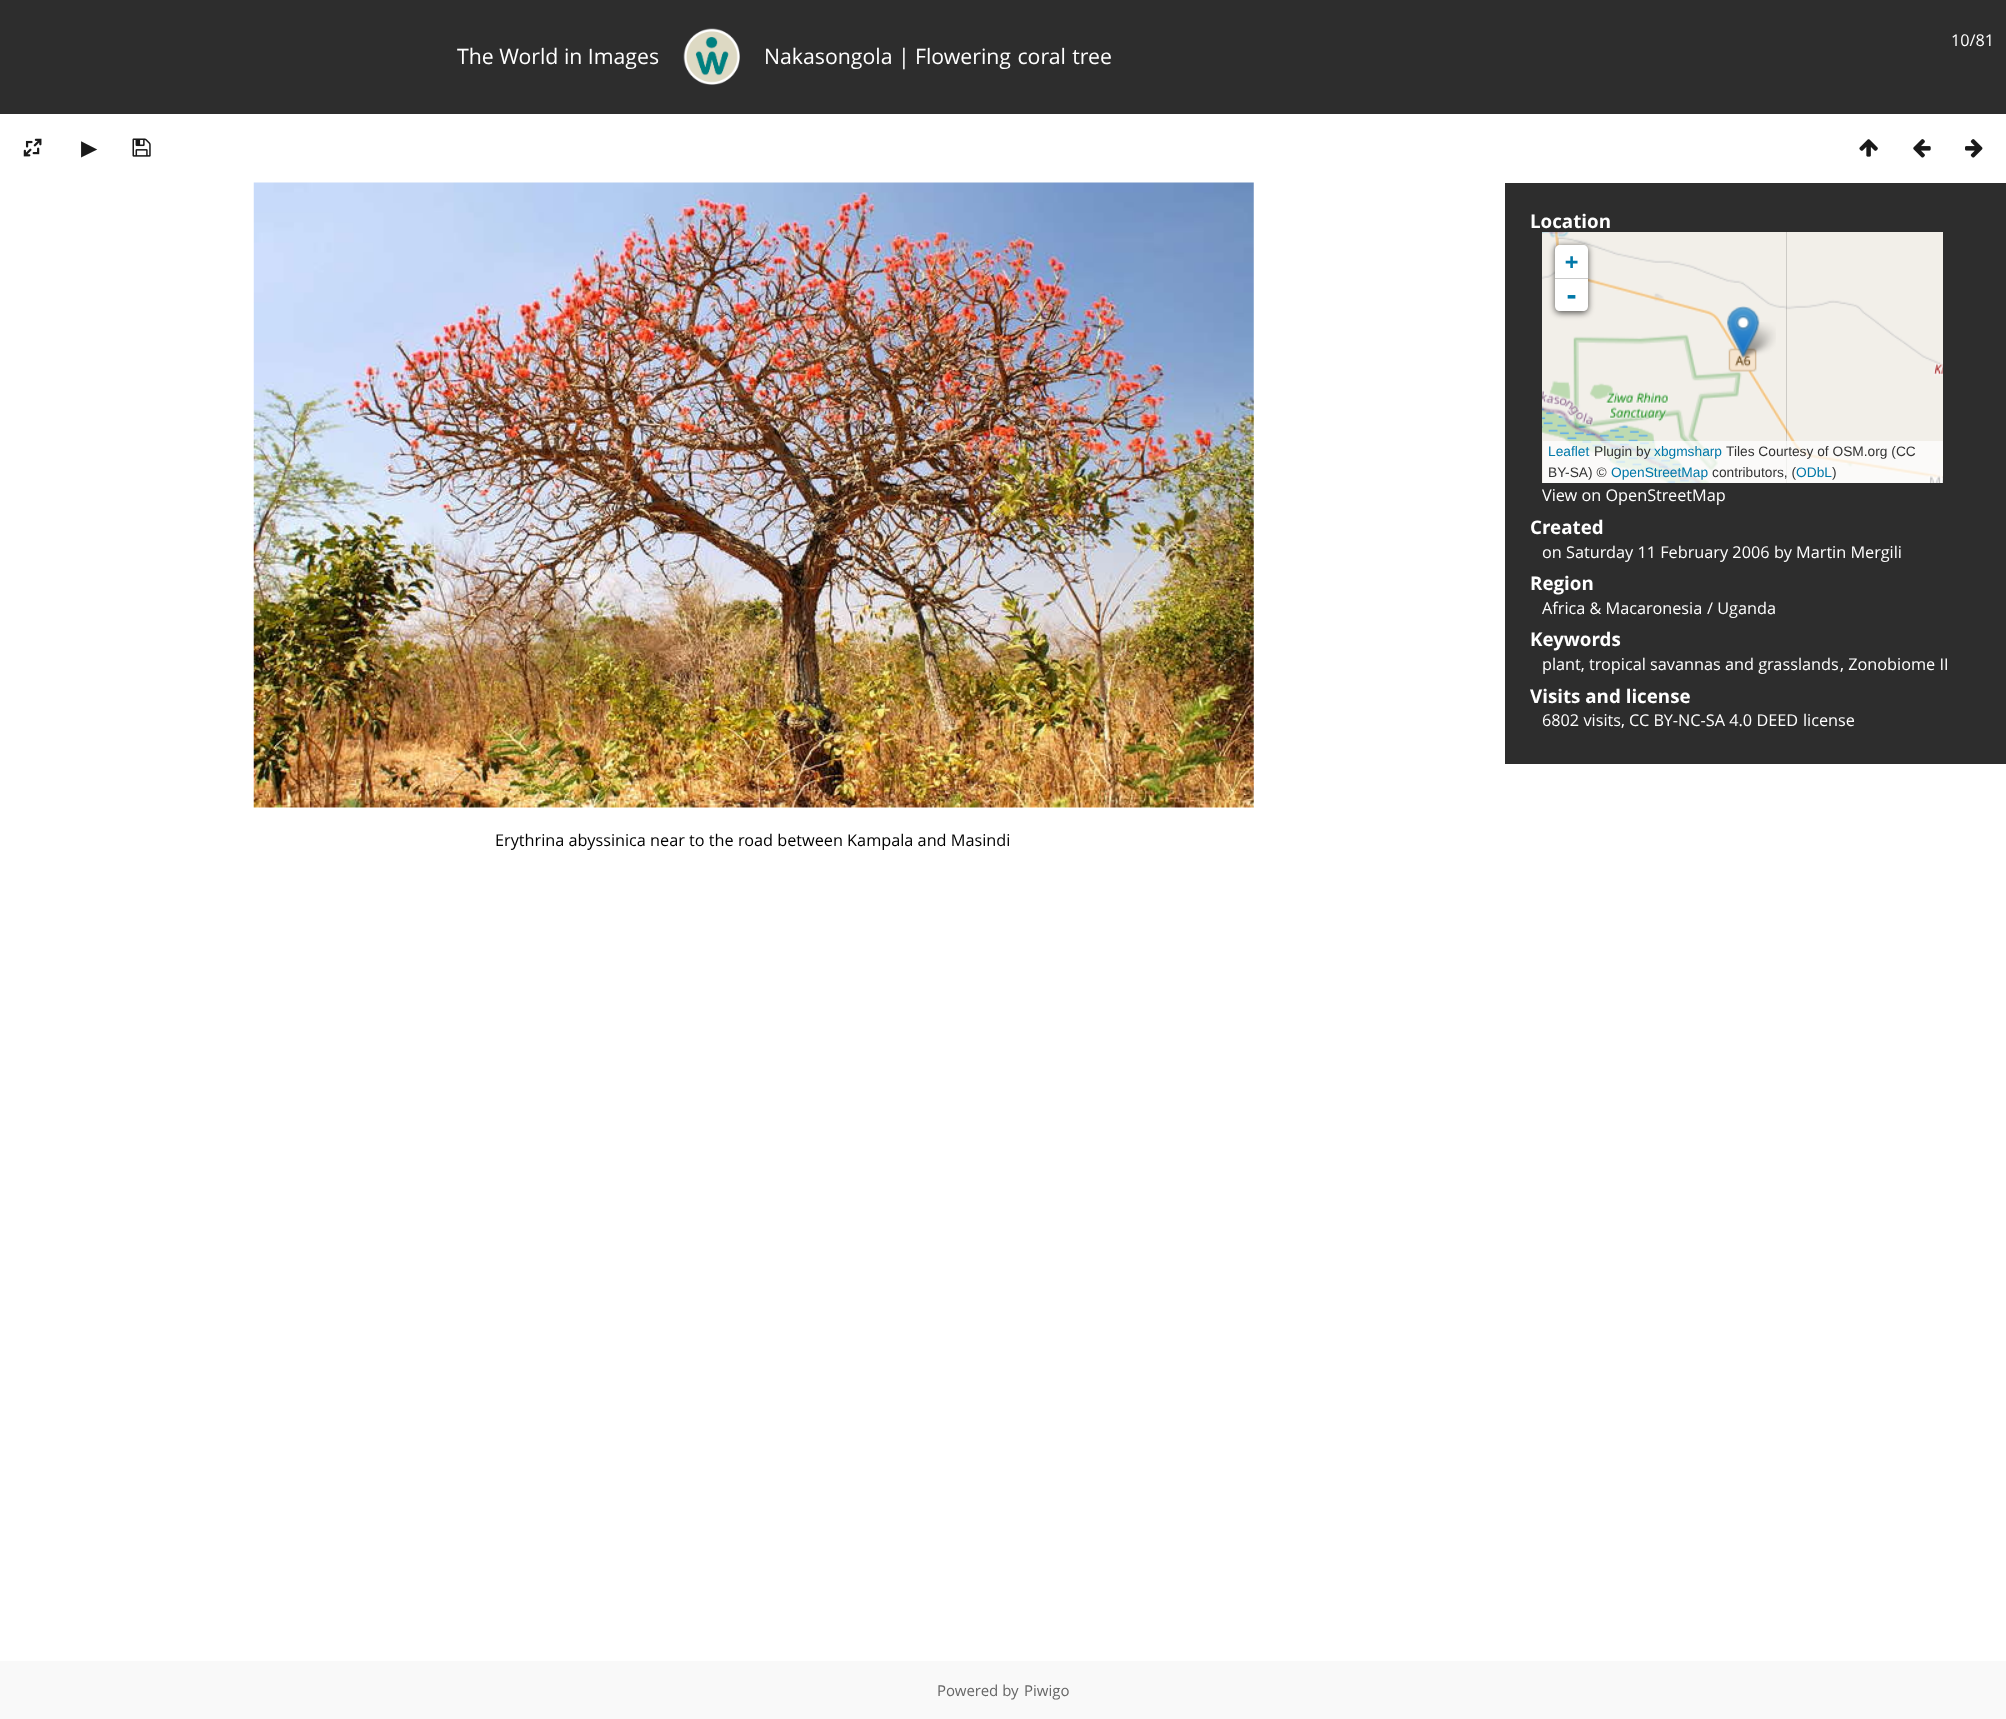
<svg xmlns="http://www.w3.org/2000/svg" width="2006" height="1719">
<style>
.a{font:16.25px Open Sans;fill:#fff}
.b{font:21.25px Open Sans;fill:#fff}
.c{font:21.25px DejaVu Sans;fill:#1a1a1a}
.d{font:bold 18.75px Open Sans;fill:#fff}
.e{font:bold 22px DejaVu Sans Mono;fill:#0078a8}
.f{font:bold 25px DejaVu Sans Mono;fill:#0078a8}
.g{font:13.75px Liberation Sans;fill:#0078a8}
.h{font:13.75px Liberation Sans;fill:#333}
.i{font:16.25px Open Sans;fill:#000}
.j{font:15px Open Sans;fill:#666}
</style>
<rect width="100%" height="100%" fill="#fff"/>
<path fill="#2d2d2d" d="M0 0h2006v114H0z"/>
<image href="1.png" x="683" y="28" width="57" height="57"/>
<image href="2.png" x="23" y="138" width="19" height="19"/>
<image href="3.png" x="132" y="138" width="19" height="19"/>
<image href="4.png" x="1859" y="139" width="19" height="18"/>
<image href="5.png" x="1913" y="139" width="18" height="19"/>
<image href="6.png" x="1965" y="139" width="18" height="19"/>
<path fill="#2d2d2d" d="M1505 183h501v581H1505z"/>
<image href="7.png" x="1542" y="232" width="245" height="251"/>
<image href="8.png" x="1786" y="232" width="157" height="251"/>
<image href="10.png" x="1738" y="322" width="38" height="36"/>
<image href="9.png" x="1727" y="306" width="33" height="52"/>
<rect fill="#000000a6" filter="blur(3px)" x="1555" y="246" width="33" height="67" rx="5"/>
<path fill="#fff" d="M1560 245h23c3 0 5 2 5 5v29h-33v-29c0-3 2-5 5-5z"/>
<path fill="#ccc" d="M1555 278h33v1H1555z"/>
<path fill="#fff" d="M1555 279h33v27c0 3-2 5-5 5h-23c-3 0-5-2-5-5z"/>
<path fill="#ffffffb3" d="M1543 441h400v42H1543z"/>
<image href="11.png" x="253" y="182" width="1001" height="626"/>
<path fill="#f9f9f9" d="M0 1661h2006v58H0z"/>
<text class="a" x="1951" y="46">10/81</text>
<text class="b" x="457" y="64">The World in Images</text>
<text class="b" x="764" y="64">Nakasongola |</text>
<text class="b" x="915" y="64" word-spacing="1">Flowering coral tree</text>
<text class="c" x="81" y="155">▶</text>
<text class="d" x="1530" y="228">Location</text>
<text class="e" x="1565" y="269">+</text>
<text class="f" x="1564" y="304">-</text>
<text class="g" x="1548" y="456">Leaflet</text>
<text class="h" x="1594" y="456">Plugin by</text>
<text class="g" x="1654" y="456">xbgmsharp</text>
<text class="h" x="1726" y="456">Tiles Courtesy of OSM.org (CC</text>
<text class="h" x="1548" y="477">BY-SA) ©</text>
<text class="g" x="1611" y="477">OpenStreetMap</text>
<text class="h" x="1712" y="477">contributors, (</text>
<text class="g" x="1796" y="477">ODbL</text>
<text class="h" x="1832" y="477">)</text>
<text class="a" x="1542" y="501">View on OpenStreetMap</text>
<text class="d" x="1530" y="534">Created</text>
<text class="a" x="1542" y="558">on Saturday 11 February 2006</text>
<text class="a" x="1774" y="558">by Martin Mergili</text>
<text class="d" x="1530" y="590">Region</text>
<text class="a" x="1542" y="614">Africa &amp; Macaronesia</text>
<text class="a" x="1707" y="614">/ Uganda</text>
<text class="d" x="1530" y="646">Keywords</text>
<text class="a" x="1542" y="670">plant,</text>
<text class="a" x="1589" y="670">tropical savannas and grasslands</text>
<text class="a" x="1840" y="670">, Zonobiome II</text>
<text class="d" x="1530" y="703">Visits and license</text>
<text class="a" x="1542" y="726">6802 visits,</text>
<text class="a" x="1629" y="726">CC BY-NC-SA 4.0 DEED</text>
<text class="a" x="1803" y="726">license</text>
<text class="i" x="495" y="846">Erythrina abyssinica near to the road between Kampala and Masindi</text>
<text class="j" x="937" y="1696">Powered by</text>
<text class="j" x="1024" y="1696">Piwigo</text>
</svg>
